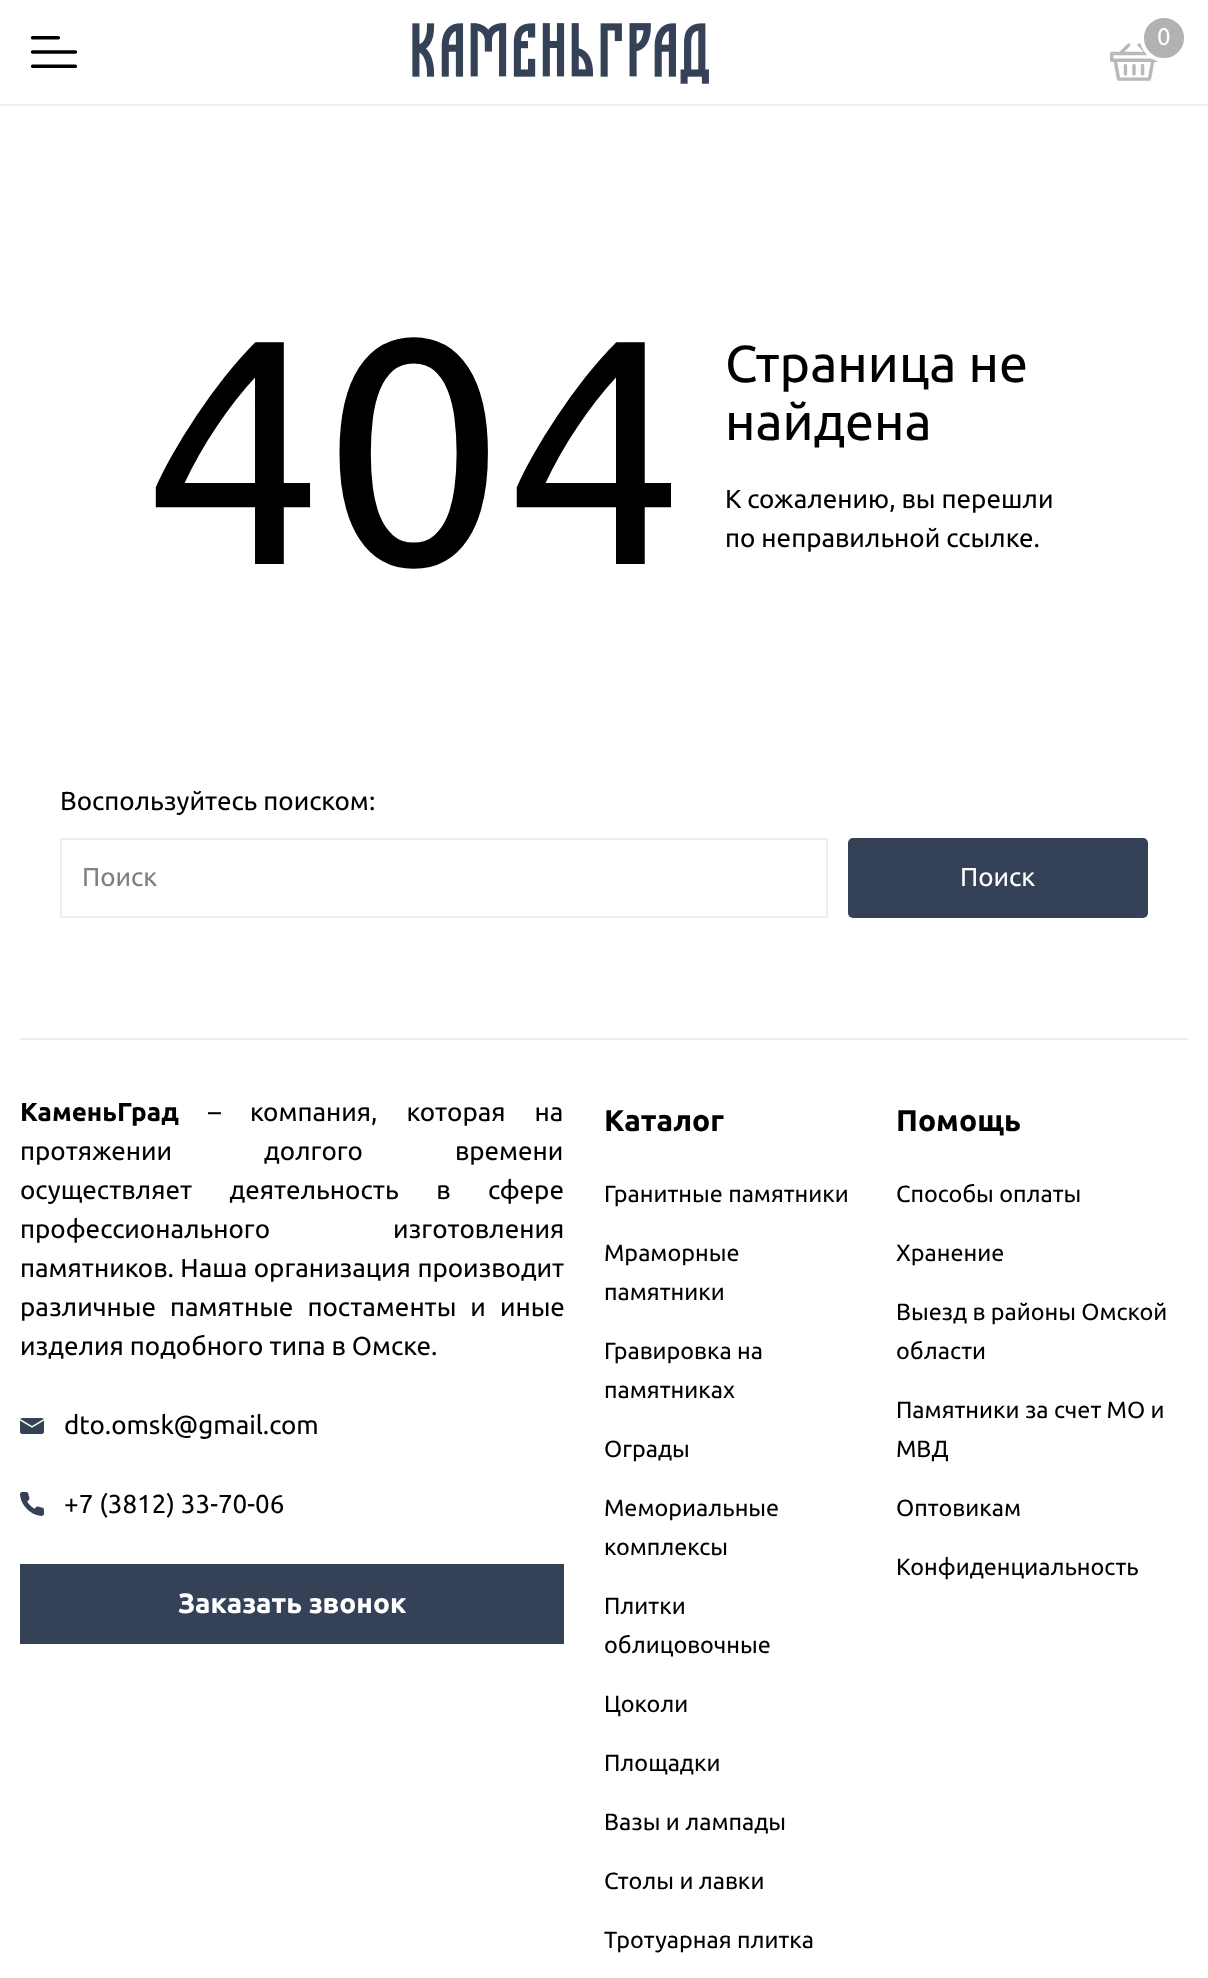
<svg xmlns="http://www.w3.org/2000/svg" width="1208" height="1978">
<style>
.a{font:24px Ubuntu;fill:#fff}
.b{font:320px Ubuntu;fill:#000}
.c{font:52px Ubuntu;fill:#000}
.d{font:26px Ubuntu;fill:#000}
.e{font:26px Ubuntu;fill:#808080}
.f{font:26px Ubuntu;fill:#fff}
.g{font:bold 26px Ubuntu;fill:#000}
.h{font:bold 28px Ubuntu;fill:#fff}
.i{font:bold 30px Ubuntu;fill:#000}
.j{font:23.4px Ubuntu;fill:#000}
</style>
<rect width="100%" height="100%" fill="#fff"/>
<path fill="#eee" d="M0 104h1208v2H0z"/>
<image href="1.png" x="30" y="36" width="48" height="32"/>
<image href="2.png" x="412" y="23" width="297" height="61"/>
<image href="3.png" x="1110" y="43" width="48" height="38"/>
<circle fill="#b2b2b2" stroke="#fff" stroke-width="4" cx="1164" cy="38" r="22"/>
<path fill="#ededed" d="M20 1038h1168v2H20z"/>
<path fill="none" stroke="#ededed" stroke-width="2" d="M61 839h766v78H61z"/>
<rect fill="#344156" x="848" y="838" width="300" height="80" rx="5"/>
<image href="4.png" x="20" y="1418" width="24" height="16"/>
<image href="5.png" x="20" y="1492" width="24" height="24"/>
<path fill="#344156" d="M20 1564h544v80H20z"/>
<text class="a" x="1157" y="45">0</text>
<text class="b" x="143" y="564">404</text>
<text class="c" x="725" y="382">Страница не</text>
<text class="c" x="725" y="440">найдена</text>
<text class="d" x="725" y="508">К сожалению, вы перешли</text>
<text class="d" x="725" y="547">по неправильной ссылке.</text>
<text class="d" x="60" y="810">Воспользуйтесь поиском:</text>
<text class="e" x="82" y="886">Поиск</text>
<text class="f" x="960" y="886">Поиск</text>
<text class="g" x="20" y="1121">КаменьГрад</text>
<text class="d" x="208" y="1121" word-spacing="23">– компания, которая на</text>
<text class="d" x="20" y="1160" word-spacing="86">протяжении долгого времени</text>
<text class="d" x="20" y="1199" word-spacing="31.5">осуществляет деятельность в сфере</text>
<text class="d" x="20" y="1238" word-spacing="117">профессионального изготовления</text>
<text class="d" x="20" y="1277" word-spacing="0.5">памятников. Наша организация производит</text>
<text class="d" x="20" y="1316" word-spacing="8">различные памятные постаменты и иные</text>
<text class="d" x="20" y="1355">изделия подобного типа в Омске.</text>
<text class="d" x="64" y="1434">dto.omsk@gmail.com</text>
<text class="d" x="64" y="1513">+7 (3812) 33-70-06</text>
<text class="h" x="178" y="1613">Заказать звонок</text>
<text class="i" x="604" y="1131">Каталог</text>
<text class="j" x="604" y="1202">Гранитные памятники</text>
<text class="j" x="604" y="1261">Мраморные</text>
<text class="j" x="604" y="1300">памятники</text>
<text class="j" x="604" y="1359">Гравировка на</text>
<text class="j" x="604" y="1398">памятниках</text>
<text class="j" x="604" y="1457">Ограды</text>
<text class="j" x="604" y="1516">Мемориальные</text>
<text class="j" x="604" y="1555">комплексы</text>
<text class="j" x="604" y="1614">Плитки</text>
<text class="j" x="604" y="1653">облицовочные</text>
<text class="j" x="604" y="1712">Цоколи</text>
<text class="j" x="604" y="1771">Площадки</text>
<text class="j" x="604" y="1830">Вазы и лампады</text>
<text class="j" x="604" y="1889">Столы и лавки</text>
<text class="j" x="604" y="1948">Тротуарная плитка</text>
<text class="i" x="896" y="1131">Помощь</text>
<text class="j" x="896" y="1202">Способы оплаты</text>
<text class="j" x="896" y="1261">Хранение</text>
<text class="j" x="896" y="1320">Выезд в районы Омской</text>
<text class="j" x="896" y="1359">области</text>
<text class="j" x="896" y="1418">Памятники за счет МО и</text>
<text class="j" x="896" y="1457">МВД</text>
<text class="j" x="896" y="1516">Оптовикам</text>
<text class="j" x="896" y="1575">Конфиденциальность</text>
</svg>
